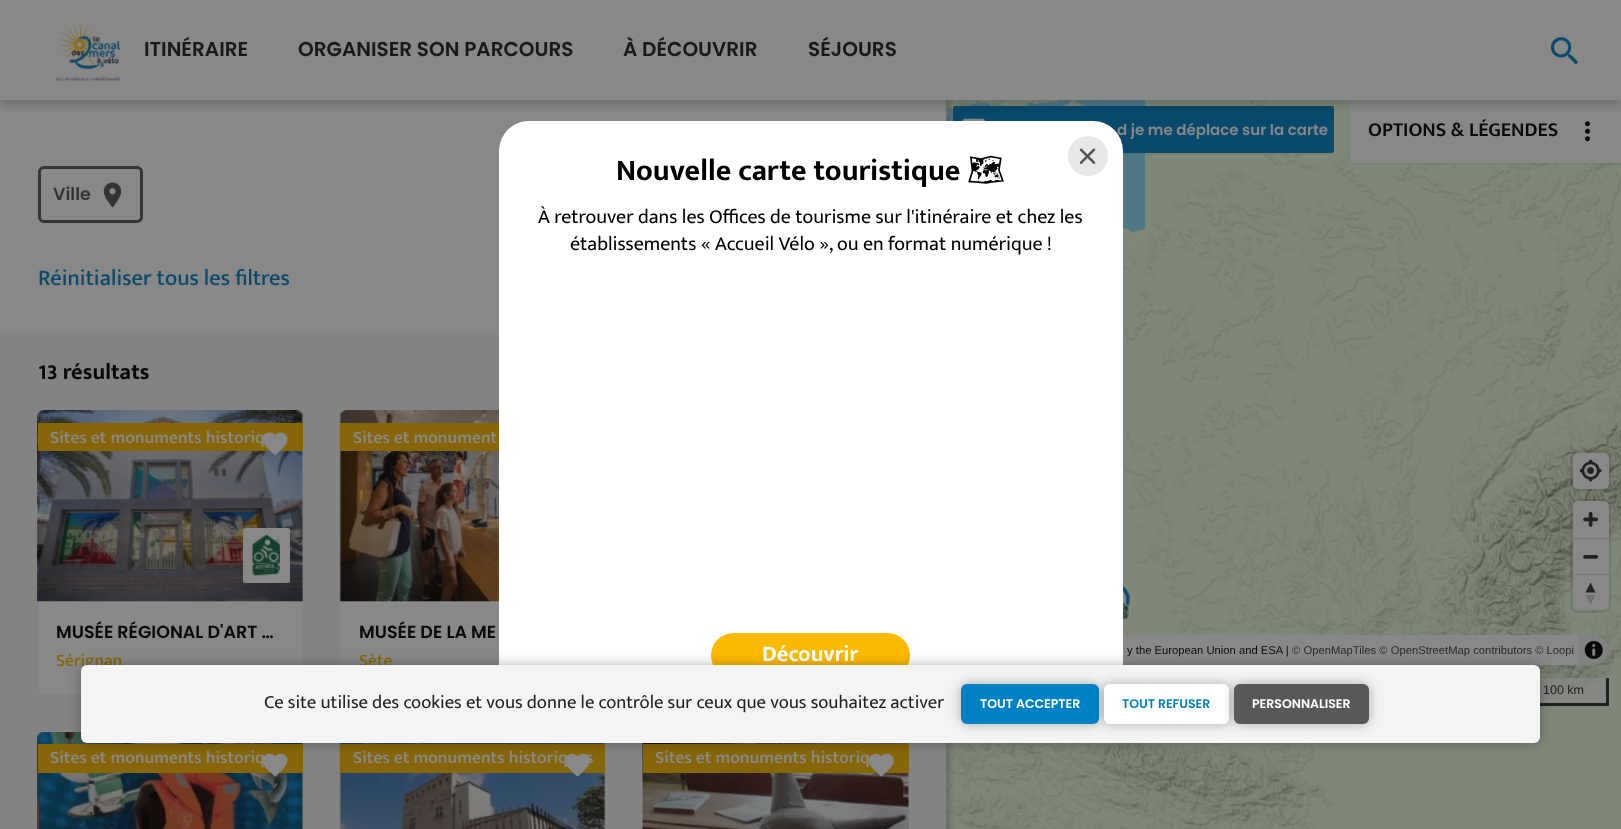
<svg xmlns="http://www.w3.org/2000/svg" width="1621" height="829">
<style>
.a{font:600 20px Poppins;fill:#1a1819}
.b{font:600 17.5px Poppins;fill:#353535}
.c{font:500 22.5px Mukta Mahee;fill:#09496c}
.d{font:bold 22.5px Mukta Mahee;fill:#090909}
.e{font:600 17.5px Mukta Mahee;fill:#888}
.f{font:600 17.5px Poppins;fill:#090909}
.g{font:500 17.5px Mukta Mahee;fill:#866609}
.h{font:600 15px Poppins;fill:#888}
.i{font:600 20px Mukta Mahee;fill:#090909}
.j{font:11.25px Liberation Sans;fill:#090909}
.k{font:11.25px Liberation Sans;fill:#292929}
.l{font:12.5px Liberation Sans;fill:#222}
.m{font:bold 30px Mukta Mahee;fill:#000}
.n{font:bold 30px Noto Emoji;fill:#000}
.o{font:20px Mukta Mahee;fill:#000}
.p{font:bold 22.5px Mukta Mahee;fill:#fff}
.q{font:18.75px Mukta Mahee;fill:#222}
.r{font:600 12.5px Poppins;fill:#fff}
.s{font:600 12.5px Poppins;fill:#0081c6}
</style>
<defs>
<clipPath id="clip1"><path d="M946 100h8v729H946z"/></clipPath>
<linearGradient id="g1" gradientUnits="userSpaceOnUse" x1="170" y1="601" x2="170" y2="410"><stop offset="0" stop-color="#090909" stop-opacity="0.2"/><stop offset="1" stop-color="#090909" stop-opacity="0"/></linearGradient>
<linearGradient id="g2" gradientUnits="userSpaceOnUse" x1="473" y1="601" x2="473" y2="410"><stop offset="0" stop-color="#090909" stop-opacity="0.2"/><stop offset="1" stop-color="#090909" stop-opacity="0"/></linearGradient>
<linearGradient id="g3" gradientUnits="userSpaceOnUse" x1="170" y1="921" x2="170" y2="731"><stop offset="0" stop-color="#090909" stop-opacity="0.2"/><stop offset="1" stop-color="#090909" stop-opacity="0"/></linearGradient>
<linearGradient id="g4" gradientUnits="userSpaceOnUse" x1="473" y1="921" x2="473" y2="731"><stop offset="0" stop-color="#090909" stop-opacity="0.2"/><stop offset="1" stop-color="#090909" stop-opacity="0"/></linearGradient>
<linearGradient id="g5" gradientUnits="userSpaceOnUse" x1="776" y1="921" x2="776" y2="731"><stop offset="0" stop-color="#090909" stop-opacity="0.2"/><stop offset="1" stop-color="#090909" stop-opacity="0"/></linearGradient>
</defs>
<rect width="100%" height="100%" fill="#888"/>
<image href="16.png" x="946" y="100" width="675" height="729"/>
<path fill="#09090933" filter="blur(1px)" d="M955 111h376v42H955z"/>
<rect fill="#09496c" x="953" y="106" width="381" height="47" rx="2.5"/>
<image href="14.png" x="962" y="118" width="23" height="3"/>
<rect fill="#09090933" filter="blur(1px)" x="1353" y="105" width="266" height="58" rx="4"/>
<path fill="#888" d="M1350 100h271v63h-265c-3.5 0-6-2.5-6-6z"/>
<path fill="#09090933" filter="blur(5px)" d="M0 -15h1621v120H0z"/>
<g clip-path="url(#clip1)">
<path fill="#09090933" filter="blur(3px)" d="M9 -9h941v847H9z"/>
</g>
<path fill="#888" d="M0 0h1621v100H0z"/>
<image href="1.png" x="56" y="22" width="65" height="60"/>
<image href="2.png" x="1550" y="37" width="29" height="28"/>
<rect fill="none" stroke="#353535" stroke-width="3" x="39.5" y="167.5" width="102" height="54" rx="4.5"/>
<image href="3.png" x="103" y="182" width="19" height="26"/>
<path fill="#838383" d="M0 335h946v494H0z"/>
<rect fill="#888" x="38" y="410" width="265" height="284" rx="6"/>
<image href="4.png" x="37" y="410" width="266" height="192"/>
<path fill="url(#g1)" d="M38 451h265v150H38z"/>
<path fill="#866609" d="M38 423h265v28H38z"/>
<rect fill="#888" x="243" y="528" width="47" height="55" rx="2.5"/>
<image href="5.png" x="252" y="535" width="28" height="41"/>
<rect fill="#888" x="340" y="410" width="265" height="284" rx="6"/>
<image href="7.png" x="339" y="410" width="160" height="192"/>
<path fill="url(#g2)" d="M340 451h159v150H340z"/>
<path fill="#866609" d="M340 423h159v28H340z"/>
<rect fill="#888" x="38" y="731" width="265" height="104" rx="6"/>
<image href="8.png" x="37" y="732" width="266" height="97"/>
<path fill="url(#g3)" d="M38 773h265v56H38z"/>
<path fill="#866609" d="M38 744h265v29H38z"/>
<path fill="#888" d="M340 743h265v86H340z"/>
<image href="10.png" x="339" y="743" width="267" height="86"/>
<path fill="url(#g4)" d="M340 773h265v56H340z"/>
<path fill="#866609" d="M340 744h265v29H340z"/>
<path fill="#888" d="M908 743h1v86H908z"/>
<image href="12.png" x="642" y="743" width="267" height="86"/>
<path fill="url(#g5)" d="M643 773h266v56H643z"/>
<path fill="#866609" d="M643 744h266v29H643z"/>
<image href="15.png" x="1585" y="121" width="5" height="21"/>
<rect fill="none" stroke="#0909091a" stroke-width="3" x="1571.5" y="451.5" width="38" height="38" rx="6.5"/>
<rect fill="#888" x="1573" y="453" width="36" height="36" rx="5"/>
<image href="17.png" x="1579" y="459" width="23" height="23"/>
<rect fill="none" stroke="#0909091a" stroke-width="3" x="1571.5" y="500.5" width="38" height="111" rx="6.5"/>
<rect fill="#888" x="1573" y="501" width="36" height="109" rx="5"/>
<image href="18.png" x="1583" y="511" width="16" height="16"/>
<path fill="#777" d="M1573 538h36v1H1573z"/>
<image href="19.png" x="1583" y="555" width="16" height="4"/>
<path fill="#777" d="M1573 574h36v1H1573z"/>
<path fill="#222" d="M1585.5 592.5l5-10l5 10z"/>
<path fill="#6f6f6f" d="M1585.5 595l5 10l5-10z"/>
<rect fill="#888" x="1033" y="635" width="576" height="30" rx="15"/>
<path fill="#0909090d" d="M1579 635h30v30H1579z"/>
<image href="20.png" x="1584" y="641" width="19" height="18"/>
<path fill="#888888bf" d="M1540 678h66v25H1540z"/>
<path fill="#222" d="M1606 678h3v27H1606z"/>
<path fill="#222" d="M1535 703h74v3H1535z"/>
<text class="a" x="144" y="56">ITINÉRAIRE</text>
<text class="a" x="298" y="56">ORGANISER SON PARCOURS</text>
<text class="a" x="623" y="56">À DÉCOUVRIR</text>
<text class="a" x="808" y="56">SÉJOURS</text>
<text class="b" x="53" y="200">Ville</text>
<text class="c" x="38" y="285">Réinitialiser tous les filtres</text>
<text class="d" x="38" y="379">13 résultats</text>
<text class="e" x="50" y="443">Sites et monuments historiq</text>
<image href="6.png" x="263" y="432" width="25" height="24"/>
<text class="f" x="56" y="638">MUSÉE RÉGIONAL D'ART …</text>
<text class="g" x="56" y="666">Sérignan</text>
<text class="e" x="353" y="443">Sites et monument</text>
<text class="f" x="359" y="638">MUSÉE DE LA ME</text>
<text class="g" x="359" y="666">Sète</text>
<text class="e" x="50" y="763">Sites et monuments historiq</text>
<image href="9.png" x="263" y="753" width="25" height="24"/>
<text class="e" x="353" y="763">Sites et monuments historiq</text>
<text class="e" x="586" y="763">s</text>
<image href="11.png" x="566" y="753" width="24" height="24"/>
<text class="e" x="655" y="763">Sites et monuments historiq</text>
<image href="13.png" x="869" y="753" width="25" height="24"/>
<text class="h" x="1117" y="135">d je me déplace sur la carte</text>
<text class="i" x="1368" y="136">OPTIONS &amp; LÉGENDES</text>
<text class="j" x="1127" y="654">y the European Union and ESA |</text>
<text class="k" x="1292" y="654">© OpenMapTiles © OpenStreetMap contributors © Loopi</text>
<text class="l" x="1543" y="694">100 km</text>
<rect fill="#fff" x="499" y="121" width="624" height="588" rx="30"/>
<text class="m" x="616" y="180">Nouvelle carte touristique</text>
<text class="n" x="967" y="180">🗺</text>
<text class="o" x="538" y="223">À retrouver dans les Offices de tourisme sur l'itinéraire et chez les</text>
<text class="o" x="570" y="250">établissements « Accueil Vélo », ou en format numérique !</text>
<rect fill="#fbba00" x="711" y="633" width="199" height="45" rx="22.5"/>
<text class="p" x="762" y="661">Découvrir</text>
<circle fill="#e8e8e8" cx="1088" cy="156" r="20"/>
<image href="21.png" x="1079" y="148" width="17" height="16"/>
<rect fill="#0000004d" filter="blur(6px)" x="81" y="665" width="1459" height="78" rx="6"/>
<rect fill="#f4f4f4" x="81" y="665" width="1459" height="78" rx="6"/>
<text class="q" x="264" y="708">Ce site utilise des cookies et vous donne le contrôle sur ceux que vous souhaitez activer</text>
<rect fill="#0000004d" filter="blur(6px)" x="961" y="684" width="138" height="40" rx="6"/>
<rect fill="#0081c6" x="961" y="684" width="138" height="40" rx="6"/>
<text class="r" x="980" y="708">TOUT ACCEPTER</text>
<rect fill="#0000004d" filter="blur(6px)" x="1104" y="684" width="125" height="40" rx="6"/>
<rect fill="#fff" x="1104" y="684" width="125" height="40" rx="6"/>
<text class="s" x="1122" y="708">TOUT REFUSER</text>
<rect fill="#0000004d" filter="blur(6px)" x="1234" y="684" width="135" height="40" rx="6"/>
<rect fill="#585858" x="1234" y="684" width="135" height="40" rx="6"/>
<text class="r" x="1252" y="708">PERSONNALISER</text>
</svg>
